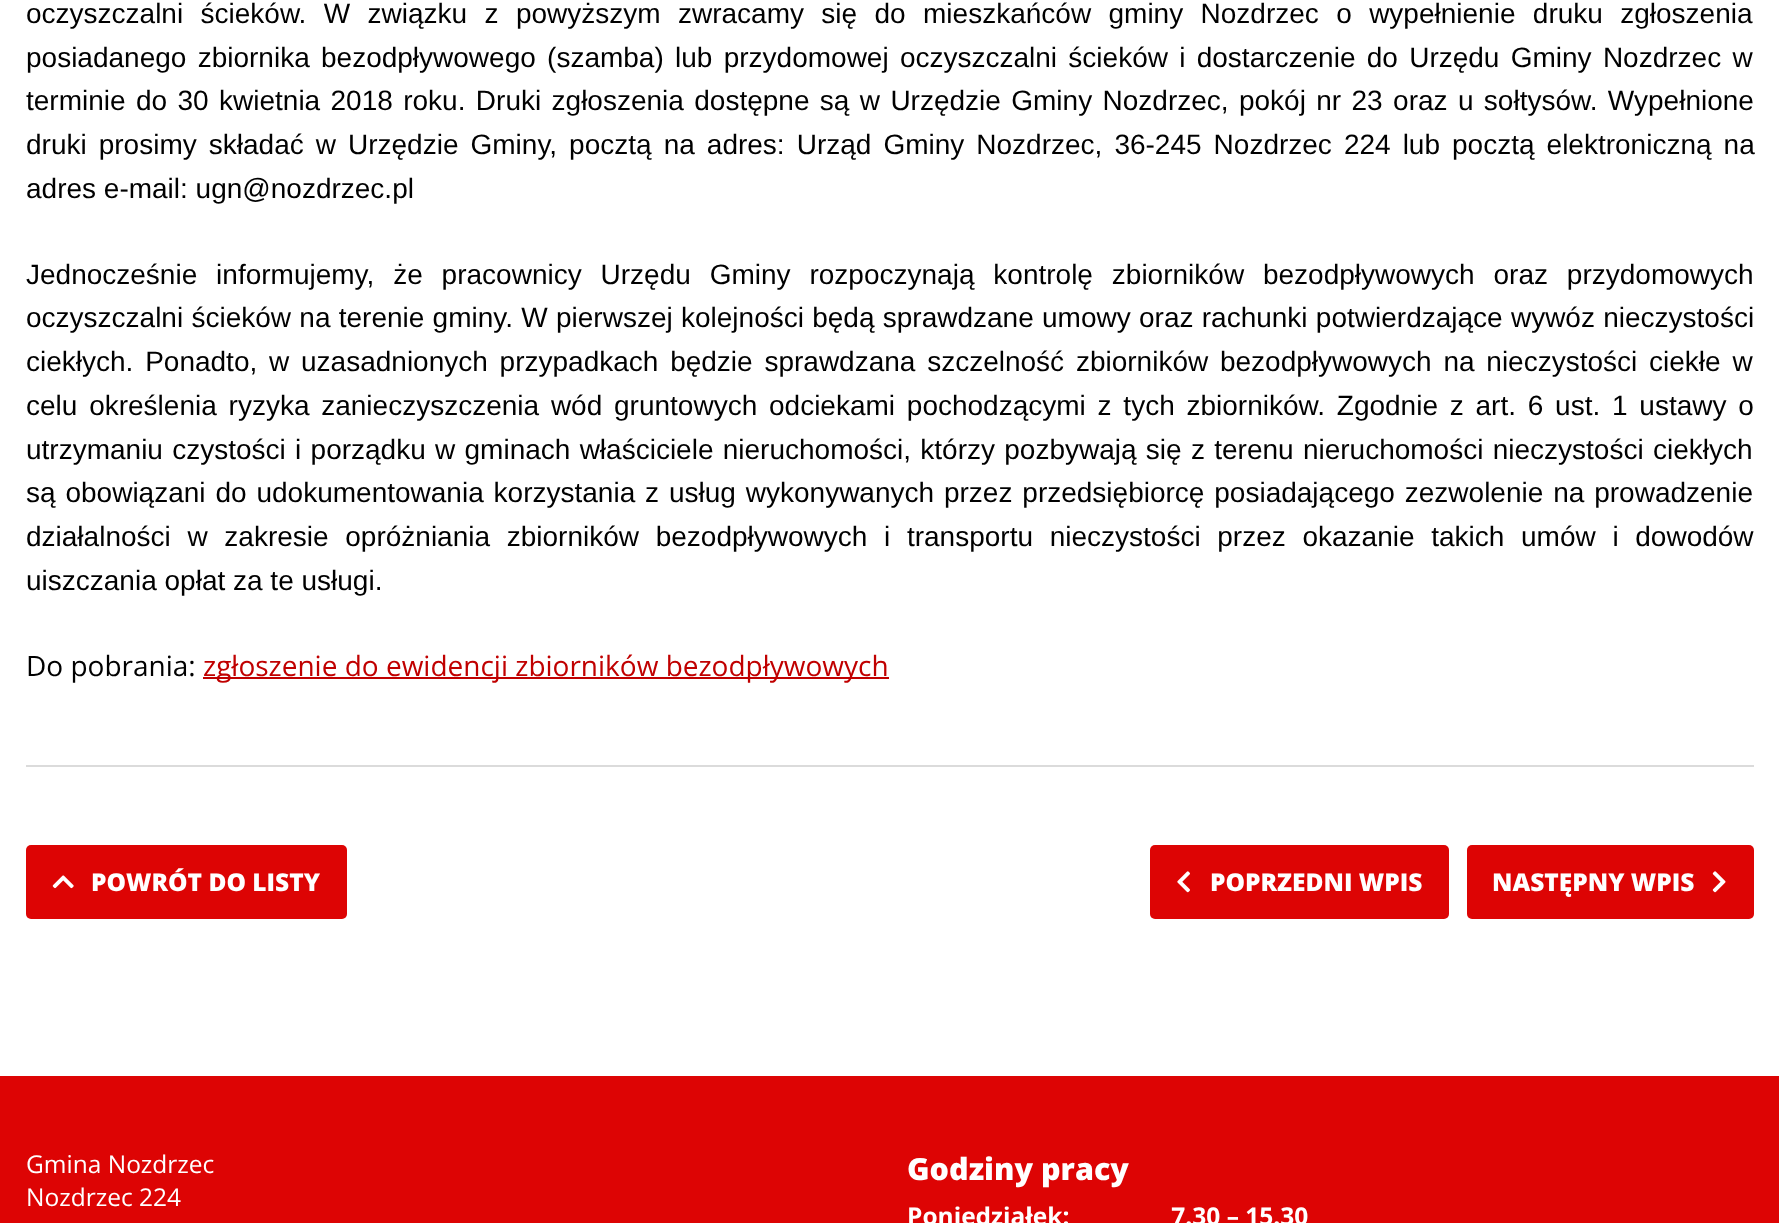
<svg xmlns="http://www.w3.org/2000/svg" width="1779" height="1223">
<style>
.a{font:28px Liberation Sans;fill:#000}
.b{font:28px Open Sans;fill:#000}
.c{font:28px Open Sans;fill:#c00000}
.d{font:800 24.5px Open Sans;fill:#fff}
.e{font:24.5px Open Sans;fill:#fff}
.f{font:800 30.5px Open Sans;fill:#fff}
.g{font:bold 24.5px Open Sans;fill:#fff}
</style>
<rect width="100%" height="100%" fill="#fff"/>
<path fill="#c00000" d="M203 677h686v2H203z"/>
<path fill="#dbdbdb" d="M26 765h1728v2H26z"/>
<rect fill="#dd0404" x="26" y="845" width="321" height="74" rx="5"/>
<image href="1.png" x="52" y="875" width="22" height="14"/>
<rect fill="#dd0404" x="1150" y="845" width="299" height="74" rx="5"/>
<image href="2.png" x="1177" y="871" width="13" height="22"/>
<rect fill="#dd0404" x="1467" y="845" width="287" height="74" rx="5"/>
<image href="3.png" x="1712" y="871" width="14" height="22"/>
<path fill="#dd0404" d="M0 1076h1779v147H0z"/>
<text class="a" x="26" y="23" word-spacing="9.6">oczyszczalni ścieków. W związku z powyższym zwracamy się do mieszkańców gminy Nozdrzec o wypełnienie druku zgłoszenia</text>
<text class="a" x="26" y="67" word-spacing="3.5">posiadanego zbiornika bezodpływowego (szamba) lub przydomowej oczyszczalni ścieków i dostarczenie do Urzędu Gminy Nozdrzec w</text>
<text class="a" x="26" y="110" word-spacing="2.6">terminie do 30 kwietnia 2018 roku. Druki zgłoszenia dostępne są w Urzędzie Gminy Nozdrzec, pokój nr 23 oraz u sołtysów. Wypełnione</text>
<text class="a" x="26" y="154" word-spacing="4.25">druki prosimy składać w Urzędzie Gminy, pocztą na adres: Urząd Gminy Nozdrzec, 36-245 Nozdrzec 224 lub pocztą elektroniczną na</text>
<text class="a" x="26" y="198">adres e-mail: ugn@nozdrzec.pl</text>
<text class="a" x="26" y="284" word-spacing="11.1">Jednocześnie informujemy, że pracownicy Urzędu Gminy rozpoczynają kontrolę zbiorników bezodpływowych oraz przydomowych</text>
<text class="a" x="26" y="327" word-spacing="0.5">oczyszczalni ścieków na terenie gminy. W pierwszej kolejności będą sprawdzane umowy oraz rachunki potwierdzające wywóz nieczystości</text>
<text class="a" x="26" y="371" word-spacing="4">ciekłych. Ponadto, w uzasadnionych przypadkach będzie sprawdzana szczelność zbiorników bezodpływowych na nieczystości ciekłe w</text>
<text class="a" x="26" y="415" word-spacing="4">celu określenia ryzyka zanieczyszczenia wód gruntowych odciekami pochodzącymi z tych zbiorników. Zgodnie z art. 6 ust. 1 ustawy o</text>
<text class="a" x="26" y="459" word-spacing="1.5">utrzymaniu czystości i porządku w gminach właściciele nieruchomości, którzy pozbywają się z terenu nieruchomości nieczystości ciekłych</text>
<text class="a" x="26" y="502" word-spacing="2.1">są obowiązani do udokumentowania korzystania z usług wykonywanych przez przedsiębiorcę posiadającego zezwolenie na prowadzenie</text>
<text class="a" x="26" y="546" word-spacing="8.9">działalności w zakresie opróżniania zbiorników bezodpływowych i transportu nieczystości przez okazanie takich umów i dowodów</text>
<text class="a" x="26" y="590">uiszczania opłat za te usługi.</text>
<text class="b" x="26" y="676">Do pobrania:</text>
<text class="c" x="203" y="676">zgłoszenie do ewidencji zbiorników bezodpływowych</text>
<text class="d" x="91" y="891">POWRÓT DO LISTY</text>
<text class="d" x="1210" y="891">POPRZEDNI WPIS</text>
<text class="d" x="1492" y="891">NASTĘPNY WPIS</text>
<text class="e" x="26" y="1173">Gmina Nozdrzec</text>
<text class="e" x="26" y="1206">Nozdrzec 224</text>
<text class="f" x="907" y="1180">Godziny pracy</text>
<text class="g" xml:space="preserve" x="907" y="1225">Poniedziałek:                7.30 – 15.30</text>
</svg>
